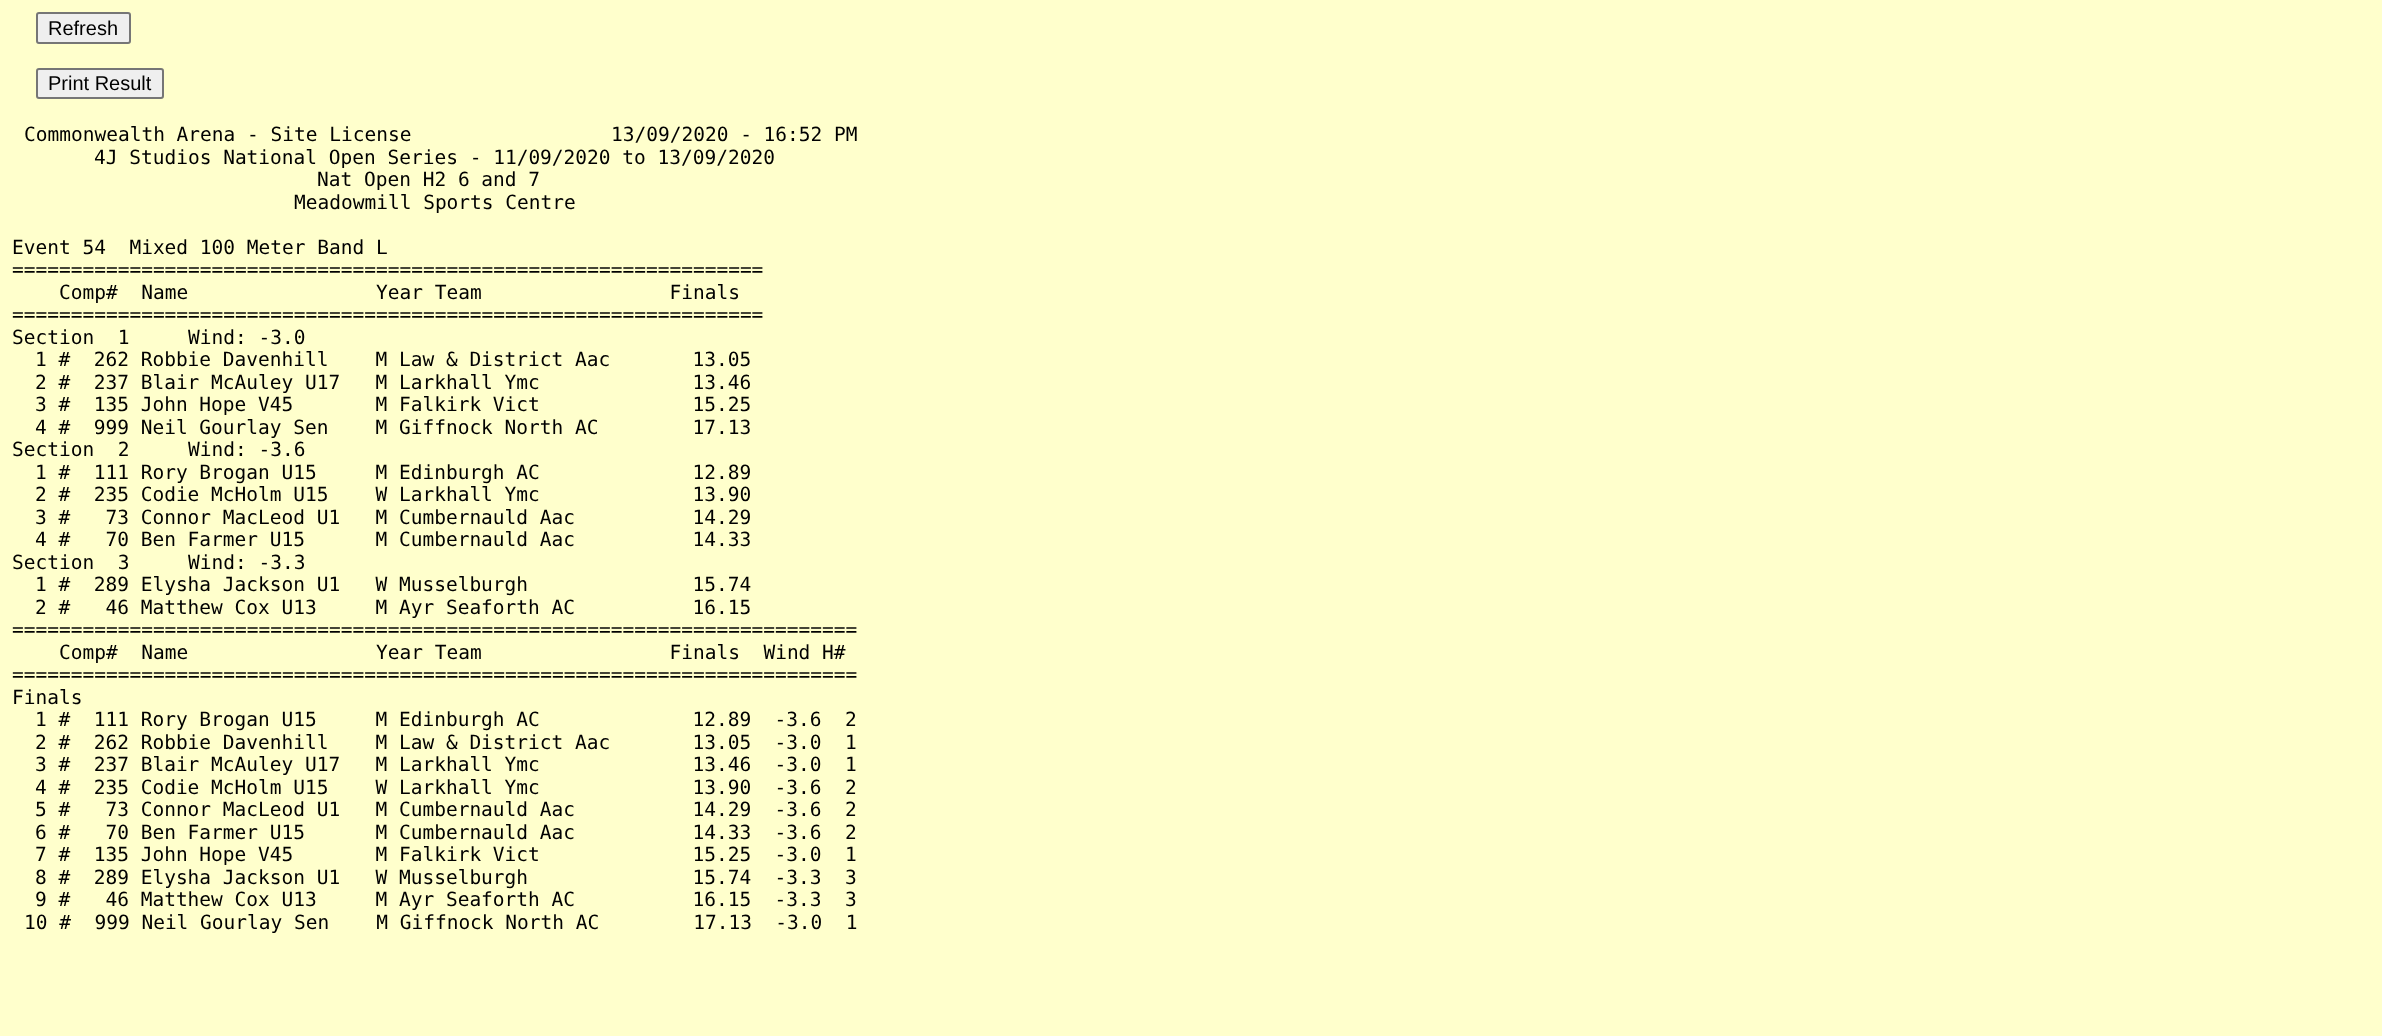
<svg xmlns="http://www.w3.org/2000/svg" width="2382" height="1036">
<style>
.a{font:20px Liberation Sans;fill:#000}
.b{font:19.5px DejaVu Sans Mono;fill:#000}
</style>
<rect width="100%" height="100%" fill="#ffc"/>
<rect fill="#efefef" stroke="#767676" stroke-width="2" x="37" y="13" width="93" height="30" rx="2"/>
<rect fill="#efefef" stroke="#767676" stroke-width="2" x="37" y="69" width="126" height="29" rx="2"/>
<text class="a" x="48" y="35">Refresh</text>
<text class="a" x="48" y="90">Print Result</text>
<text class="b" xml:space="preserve" x="24" y="141">Commonwealth Arena - Site License                 13/09/2020 - 16:52 PM</text>
<text class="b" x="94" y="164">4J Studios National Open Series - 11/09/2020 to 13/09/2020</text>
<text class="b" x="317" y="186">Nat Open H2 6 and 7</text>
<text class="b" x="294" y="209">Meadowmill Sports Centre</text>
<text class="b" xml:space="preserve" x="12" y="254">Event 54  Mixed 100 Meter Band L</text>
<text class="b" x="12" y="276">================================================================</text>
<text class="b" xml:space="preserve" x="59" y="299">Comp#  Name                Year Team                Finals</text>
<text class="b" x="12" y="321">================================================================</text>
<text class="b" xml:space="preserve" x="12" y="344">Section  1     Wind: -3.0</text>
<text class="b" xml:space="preserve" x="35" y="366">1 #  262 Robbie Davenhill    M Law &amp; District Aac       13.05</text>
<text class="b" xml:space="preserve" x="35" y="389">2 #  237 Blair McAuley U17   M Larkhall Ymc             13.46</text>
<text class="b" xml:space="preserve" x="35" y="411">3 #  135 John Hope V45       M Falkirk Vict             15.25</text>
<text class="b" xml:space="preserve" x="35" y="434">4 #  999 Neil Gourlay Sen    M Giffnock North AC        17.13</text>
<text class="b" xml:space="preserve" x="12" y="456">Section  2     Wind: -3.6</text>
<text class="b" xml:space="preserve" x="35" y="479">1 #  111 Rory Brogan U15     M Edinburgh AC             12.89</text>
<text class="b" xml:space="preserve" x="35" y="501">2 #  235 Codie McHolm U15    W Larkhall Ymc             13.90</text>
<text class="b" xml:space="preserve" x="35" y="524">3 #   73 Connor MacLeod U1   M Cumbernauld Aac          14.29</text>
<text class="b" xml:space="preserve" x="35" y="546">4 #   70 Ben Farmer U15      M Cumbernauld Aac          14.33</text>
<text class="b" xml:space="preserve" x="12" y="569">Section  3     Wind: -3.3</text>
<text class="b" xml:space="preserve" x="35" y="591">1 #  289 Elysha Jackson U1   W Musselburgh              15.74</text>
<text class="b" xml:space="preserve" x="35" y="614">2 #   46 Matthew Cox U13     M Ayr Seaforth AC          16.15</text>
<text class="b" x="12" y="636">========================================================================</text>
<text class="b" xml:space="preserve" x="59" y="659">Comp#  Name                Year Team                Finals  Wind H#</text>
<text class="b" x="12" y="681">========================================================================</text>
<text class="b" x="12" y="704">Finals</text>
<text class="b" xml:space="preserve" x="35" y="726">1 #  111 Rory Brogan U15     M Edinburgh AC             12.89  -3.6  2</text>
<text class="b" xml:space="preserve" x="35" y="749">2 #  262 Robbie Davenhill    M Law &amp; District Aac       13.05  -3.0  1</text>
<text class="b" xml:space="preserve" x="35" y="771">3 #  237 Blair McAuley U17   M Larkhall Ymc             13.46  -3.0  1</text>
<text class="b" xml:space="preserve" x="35" y="794">4 #  235 Codie McHolm U15    W Larkhall Ymc             13.90  -3.6  2</text>
<text class="b" xml:space="preserve" x="35" y="816">5 #   73 Connor MacLeod U1   M Cumbernauld Aac          14.29  -3.6  2</text>
<text class="b" xml:space="preserve" x="35" y="839">6 #   70 Ben Farmer U15      M Cumbernauld Aac          14.33  -3.6  2</text>
<text class="b" xml:space="preserve" x="35" y="861">7 #  135 John Hope V45       M Falkirk Vict             15.25  -3.0  1</text>
<text class="b" xml:space="preserve" x="35" y="884">8 #  289 Elysha Jackson U1   W Musselburgh              15.74  -3.3  3</text>
<text class="b" xml:space="preserve" x="35" y="906">9 #   46 Matthew Cox U13     M Ayr Seaforth AC          16.15  -3.3  3</text>
<text class="b" xml:space="preserve" x="24" y="929">10 #  999 Neil Gourlay Sen    M Giffnock North AC        17.13  -3.0  1</text>
</svg>
